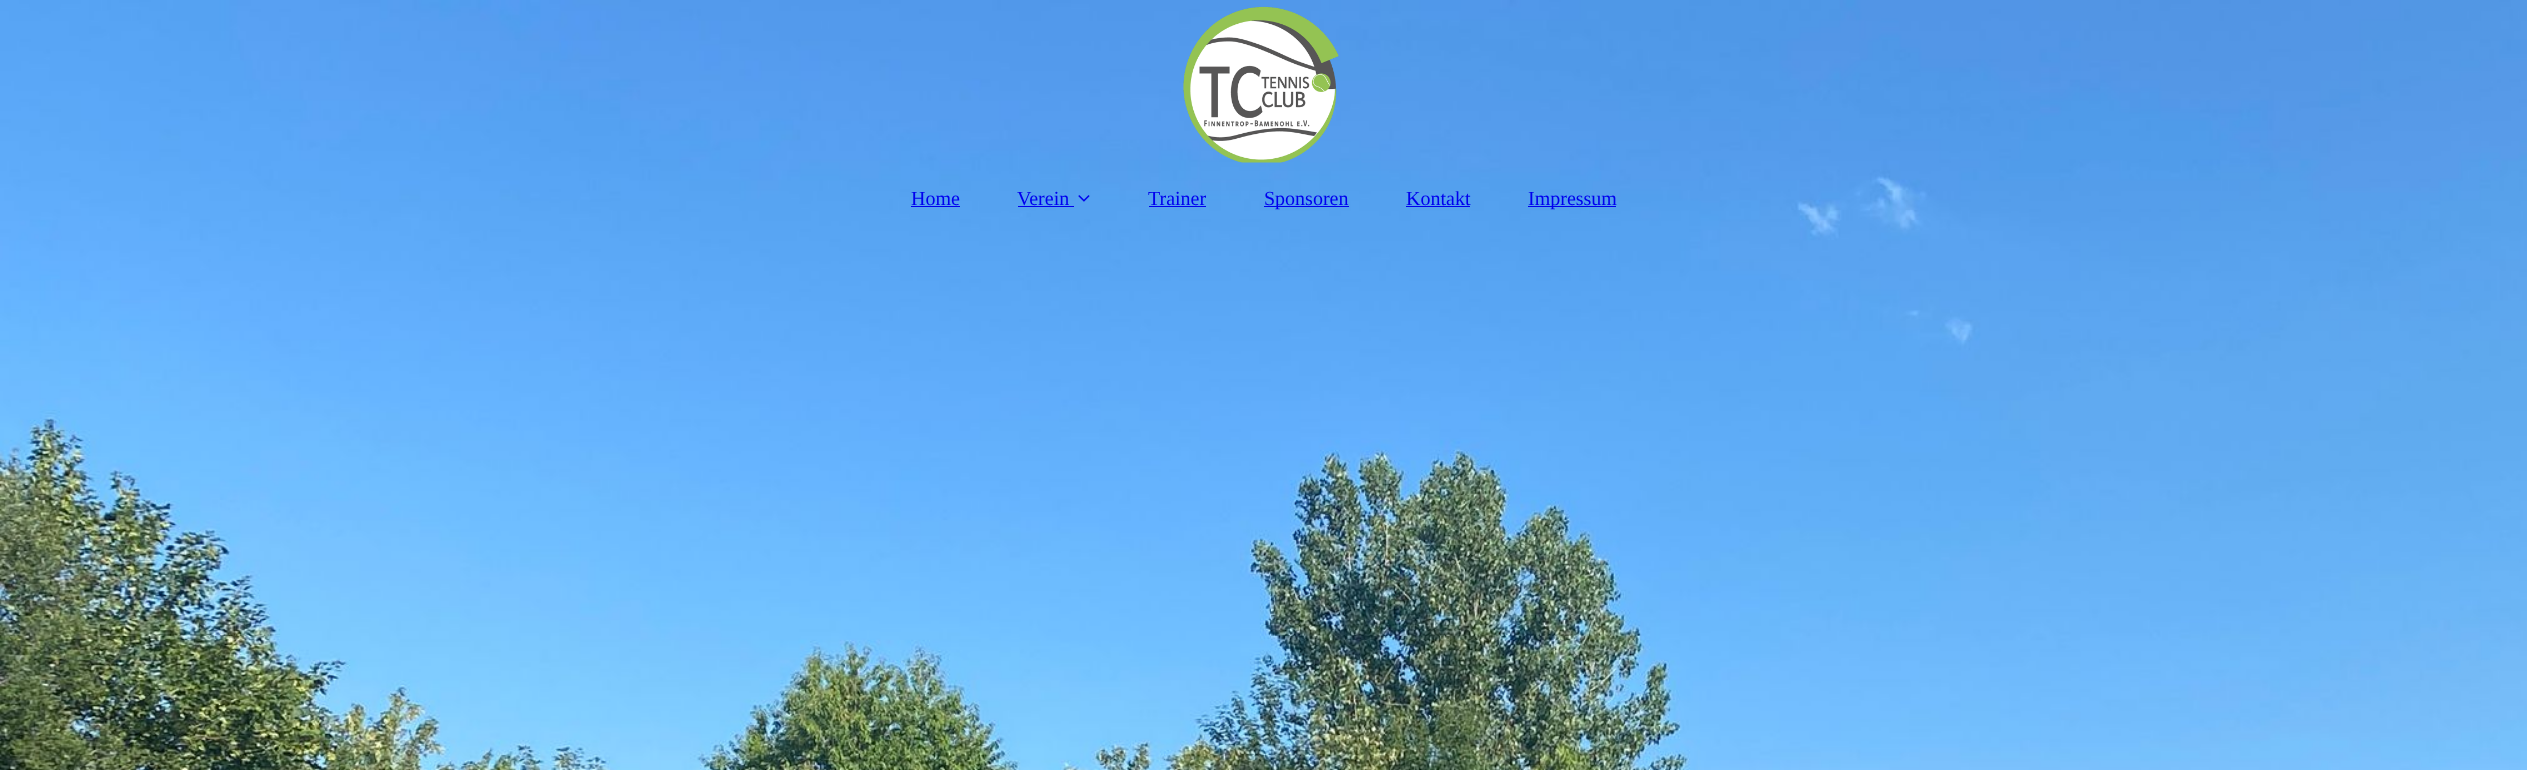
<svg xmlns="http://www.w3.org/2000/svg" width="2527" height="770">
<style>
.a{font:20px Liberation Serif;fill:#00e}
</style>
<rect width="100%" height="100%" fill="#fff"/>
<image href="1.png" x="0" y="0" width="2527" height="770"/>
<image href="2.png" x="1183" y="6" width="156" height="157"/>
<path fill="#00e" d="M911 206h49v1H911z"/>
<path fill="#00e" d="M1018 206h56v1H1018z"/>
<image href="3.png" x="1078" y="195" width="12" height="7"/>
<path fill="#00e" d="M1149 206h57v1H1149z"/>
<path fill="#00e" d="M1264 206h85v1H1264z"/>
<path fill="#00e" d="M1406 206h64v1H1406z"/>
<path fill="#00e" d="M1528 206h88v1H1528z"/>
<text class="a" x="911" y="205">Home</text>
<text class="a" x="1017" y="205">Verein</text>
<text class="a" x="1148" y="205">Trainer</text>
<text class="a" x="1264" y="205">Sponsoren</text>
<text class="a" x="1406" y="205">Kontakt</text>
<text class="a" x="1528" y="205">Impressum</text>
</svg>
